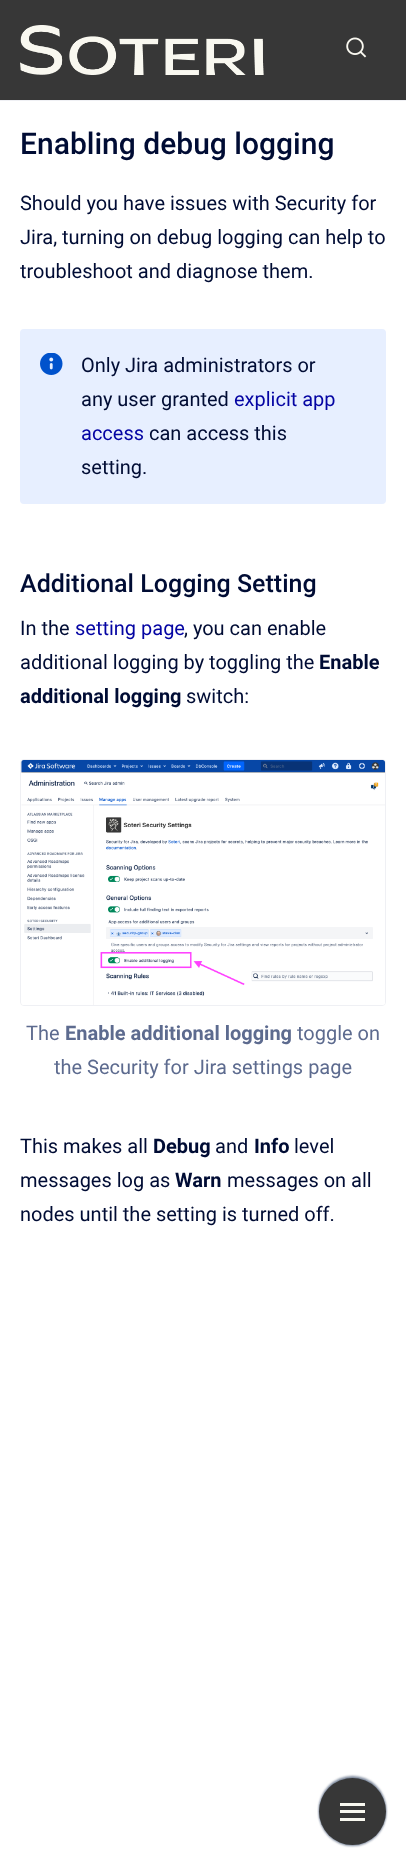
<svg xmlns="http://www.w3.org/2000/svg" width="406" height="1864">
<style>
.a{font:500 30px Roboto;fill:#000c34}
.b{font:20px Roboto;fill:#000c34}
.c{font:20px Roboto;fill:#0404a3}
.d{font:500 25px Roboto;fill:#000c34}
.e{font:bold 20px Roboto;fill:#000c34}
.f{font:20px Roboto;fill:#5d6b8f}
.g{font:bold 20px Roboto;fill:#5d6b8f}
</style>
<rect width="100%" height="100%" fill="#fff"/>
<path fill="#373737" d="M0 0h406v100H0z"/>
<path fill="#eff0f4" d="M0 100h406v1H0z"/>
<image href="1.png" x="20" y="25" width="244" height="50"/>
<image href="2.png" x="346" y="37" width="21" height="21"/>
<rect fill="#e7efff" x="20" y="329" width="366" height="175" rx="4"/>
<image href="3.png" x="40" y="353" width="23" height="22"/>
<rect fill="none" stroke="#eff0f4" x="20.5" y="759.5" width="365" height="246" rx="3.5"/>
<image href="4.png" x="21" y="760" width="364" height="245"/>
<rect fill="#7a869a" filter="blur(1px)" x="319" y="1776" width="67" height="68" rx="33.5"/>
<rect fill="#7a869a" filter="blur(1px)" x="319" y="1779" width="67" height="67" rx="33.5"/>
<circle fill="#373737" cx="352.5" cy="1811.5" r="33.5"/>
<path fill="#f9f8f0" d="M340 1803h25v3H340z"/>
<path fill="#f9f8f0" d="M340 1810h25v3H340z"/>
<path fill="#f9f8f0" d="M340 1818h25v3H340z"/>
<text class="a" x="20" y="154">Enabling debug logging</text>
<text class="b" x="20" y="210">Should you have issues with Security for</text>
<text class="b" x="20" y="244">Jira, turning on debug logging can help to</text>
<text class="b" x="20" y="278">troubleshoot and diagnose them.</text>
<text class="b" x="81" y="372">Only Jira administrators or</text>
<text class="b" x="81" y="406">any user granted</text>
<text class="c" x="234" y="406">explicit app</text>
<text class="c" x="81" y="440">access</text>
<text class="b" x="149" y="440">can access this</text>
<text class="b" x="81" y="474">setting.</text>
<text class="d" x="20" y="592">Additional Logging Setting</text>
<text class="b" x="20" y="635">In the</text>
<text class="c" x="75" y="635">setting page</text>
<text class="b" x="184" y="635">, you can enable</text>
<text class="b" x="20" y="669">additional logging by toggling the</text>
<text class="e" x="319" y="669">Enable</text>
<text class="e" x="20" y="703">additional logging</text>
<text class="b" x="186" y="703">switch:</text>
<text class="f" x="26" y="1040">The</text>
<text class="g" x="65" y="1040">Enable additional logging</text>
<text class="f" x="297" y="1040">toggle on</text>
<text class="f" x="54" y="1074">the Security for Jira settings page</text>
<text class="b" x="20" y="1153">This makes all</text>
<text class="e" x="153" y="1153">Debug</text>
<text class="b" x="215" y="1153">and</text>
<text class="e" x="254" y="1153">Info</text>
<text class="b" x="294" y="1153">level</text>
<text class="b" x="20" y="1187">messages log as</text>
<text class="e" x="175" y="1187">Warn</text>
<text class="b" x="227" y="1187">messages on all</text>
<text class="b" x="20" y="1221">nodes until the setting is turned off.</text>
</svg>
